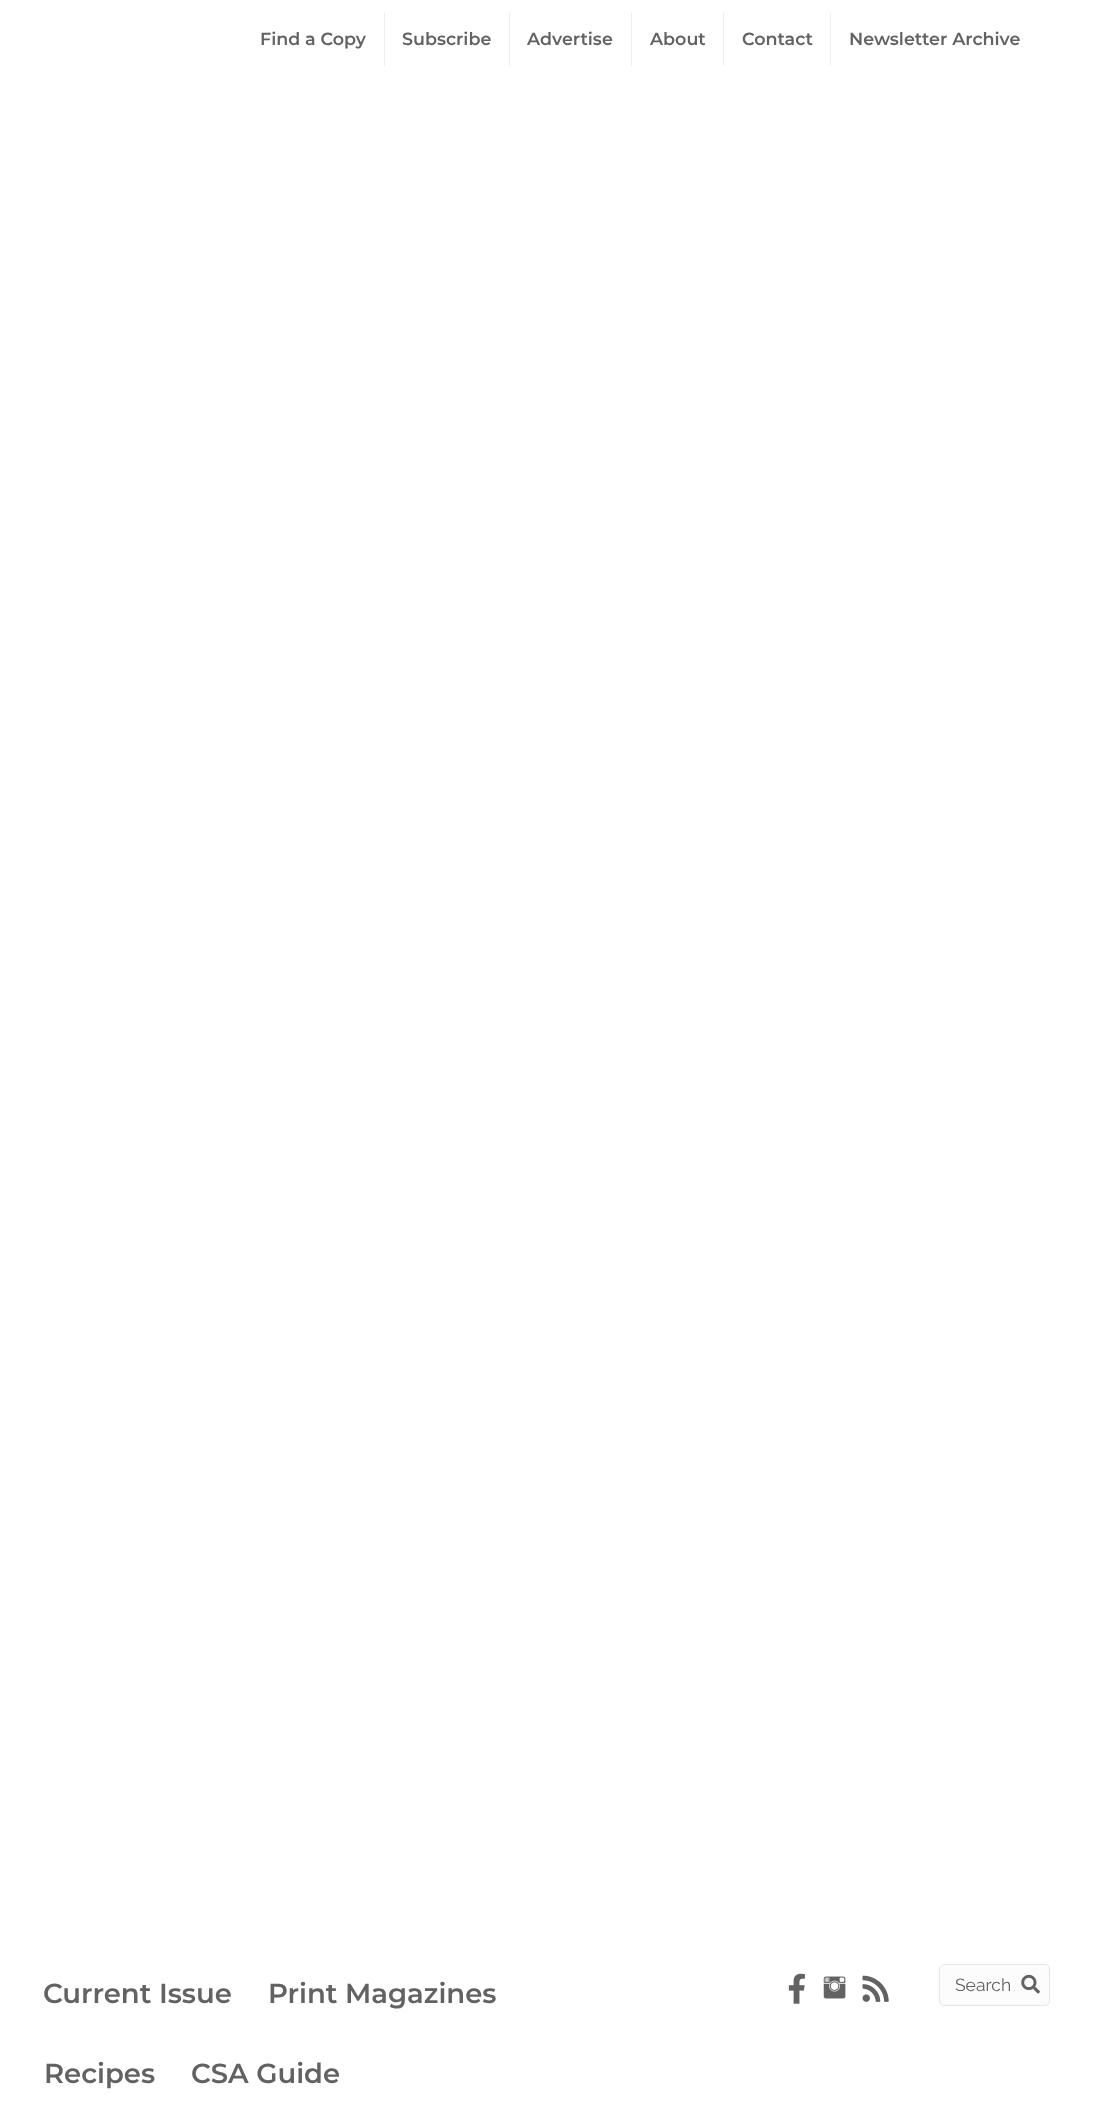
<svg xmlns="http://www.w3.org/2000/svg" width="1100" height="2105">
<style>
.a{font:600 17.5px Montserrat;fill:#626262}
.b{font:600 27.5px Montserrat;fill:#626262}
.c{font:17.5px Raleway;fill:#626262}
</style>
<rect width="100%" height="100%" fill="#fff"/>
<path fill="#efefef" d="M384 13h1v53H384z"/>
<path fill="#efefef" d="M509 13h1v53H509z"/>
<path fill="#efefef" d="M631 13h1v53H631z"/>
<path fill="#efefef" d="M723 13h1v53H723z"/>
<path fill="#efefef" d="M830 13h1v53H830z"/>
<image href="1.png" x="788" y="1973" width="17" height="31"/>
<image href="2.png" x="823" y="1976" width="23" height="23"/>
<image href="3.png" x="862" y="1975" width="27" height="27"/>
<rect fill="#fcfcfc" stroke="#e6e6e6" x="939.5" y="1964.5" width="110" height="41" rx="4.5"/>
<image href="4.png" x="1021" y="1974" width="19" height="20"/>
<text class="a" x="260" y="45">Find a Copy</text>
<text class="a" x="402" y="45">Subscribe</text>
<text class="a" x="527" y="45">Advertise</text>
<text class="a" x="650" y="45">About</text>
<text class="a" x="742" y="45">Contact</text>
<text class="a" x="849" y="45">Newsletter Archive</text>
<text class="b" x="43" y="2003">Current Issue</text>
<text class="b" x="268" y="2003">Print Magazines</text>
<text class="b" x="44" y="2083">Recipes</text>
<text class="b" x="191" y="2083">CSA Guide</text>
<text class="c" x="955" y="1991">Search</text>
</svg>
